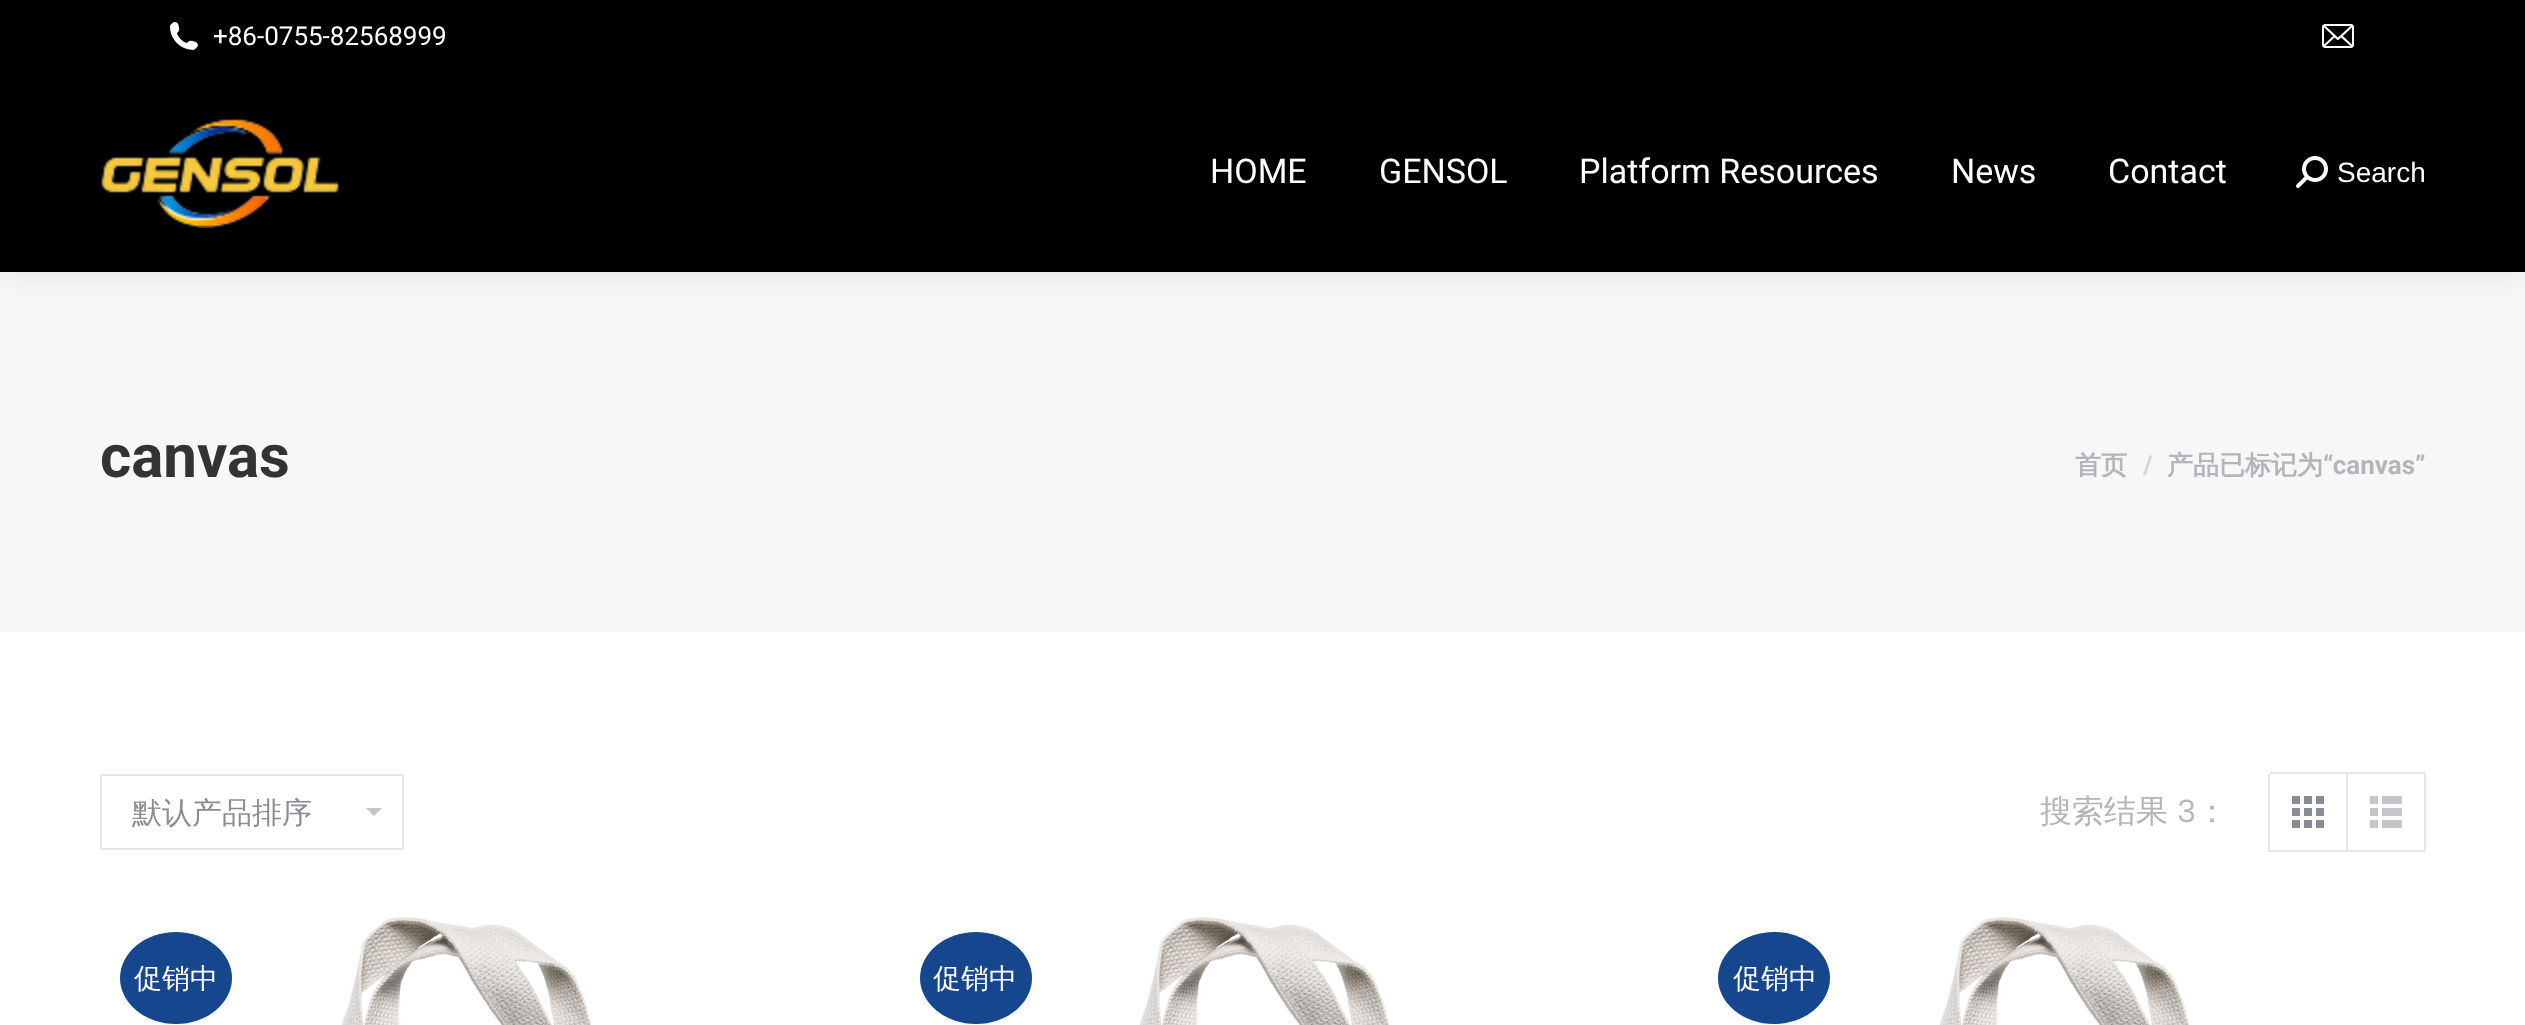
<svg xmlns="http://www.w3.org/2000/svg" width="2525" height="1025">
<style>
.a{font:26px Roboto;fill:#fff}
.b{font:34px Roboto;fill:#fff}
.c{font:28px Liberation Sans;fill:#fff}
.d{font:bold 60px Roboto;fill:#333}
.e{font:bold 26px WenQuanYi Zen Hei;fill:#b4b5bb}
.f{font:bold 26px Roboto;fill:#d6d6d9}
.g{font:bold 26px Roboto;fill:#b4b5bb}
.h{font:500 30px WenQuanYi Zen Hei;fill:#8b8d94}
.i{font:500 32px WenQuanYi Zen Hei;fill:#b4b5bb}
.j{font:32px Albert Sans;fill:#b4b5bb}
.k{font:500 28px WenQuanYi Zen Hei;fill:#fff}
</style>
<rect width="100%" height="100%" fill="#fff"/>
<path fill="#f7f7f7" d="M0 272h2525v360H0z"/>
<path fill="#00000012" filter="blur(15px)" d="M-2 -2h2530v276H-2z"/>
<path fill="#000" d="M0 0h2525v272H0z"/>
<image href="1.png" x="170" y="22" width="28" height="28"/>
<image href="2.png" x="2322" y="24" width="32" height="24"/>
<image href="3.png" x="101" y="118" width="238" height="110"/>
<image href="4.png" x="2296" y="156" width="32" height="32"/>
<path fill="#c4c5c9" d="M366 808l8 8l8-8z"/>
<rect fill="none" stroke="#e5e5e5" stroke-width="2" x="101" y="775" width="302" height="74" rx="1"/>
<path fill="#e5e5e5" d="M2270 772h76v2H2270z"/>
<path fill="#e5e5e5" d="M2270 850h76v2H2270z"/>
<path fill="#e5e5e5" d="M2268 774h2v78H2268z"/>
<image href="5.png" x="2292" y="796" width="32" height="32"/>
<path fill="none" stroke="#e5e5e5" stroke-width="2" d="M2347 773h77c.5 0 1 .5 1 1v76c0 .5-.5 1-1 1h-77z"/>
<image href="6.png" x="2370" y="796" width="32" height="32"/>
<ellipse fill="#16468d" cx="176" cy="978" rx="56" ry="46"/>
<image href="7.png" x="341" y="917" width="251" height="108"/>
<ellipse fill="#16468d" cx="976" cy="978" rx="56" ry="46"/>
<image href="8.png" x="1139" y="917" width="251" height="108"/>
<ellipse fill="#16468d" cx="1774" cy="978" rx="56" ry="46"/>
<image href="8.png" x="1939" y="917" width="251" height="108"/>
<text class="a" x="213" y="45">+86-0755-82568999</text>
<text class="b" x="1210" y="183">HOME</text>
<text class="b" x="1379" y="183">GENSOL</text>
<text class="b" x="1579" y="183">Platform Resources</text>
<text class="b" x="1951" y="183">News</text>
<text class="b" x="2108" y="183">Contact</text>
<text class="c" x="2337" y="182">Search</text>
<text class="d" x="100" y="477">canvas</text>
<text class="e" x="2075" y="474">首页</text>
<text class="f" x="2143" y="474">/</text>
<text class="e" x="2167" y="474">产品已标记为</text>
<text class="g" x="2323" y="474">“canvas”</text>
<text class="h" x="132" y="823">默认产品排序</text>
<text class="i" x="2040" y="822">搜索结果</text>
<text class="j" x="2177" y="822">3</text>
<text class="i" x="2196" y="822">：</text>
<text class="k" x="134" y="988">促销中</text>
<text class="k" x="933" y="988">促销中</text>
<text class="k" x="1733" y="988">促销中</text>
</svg>
